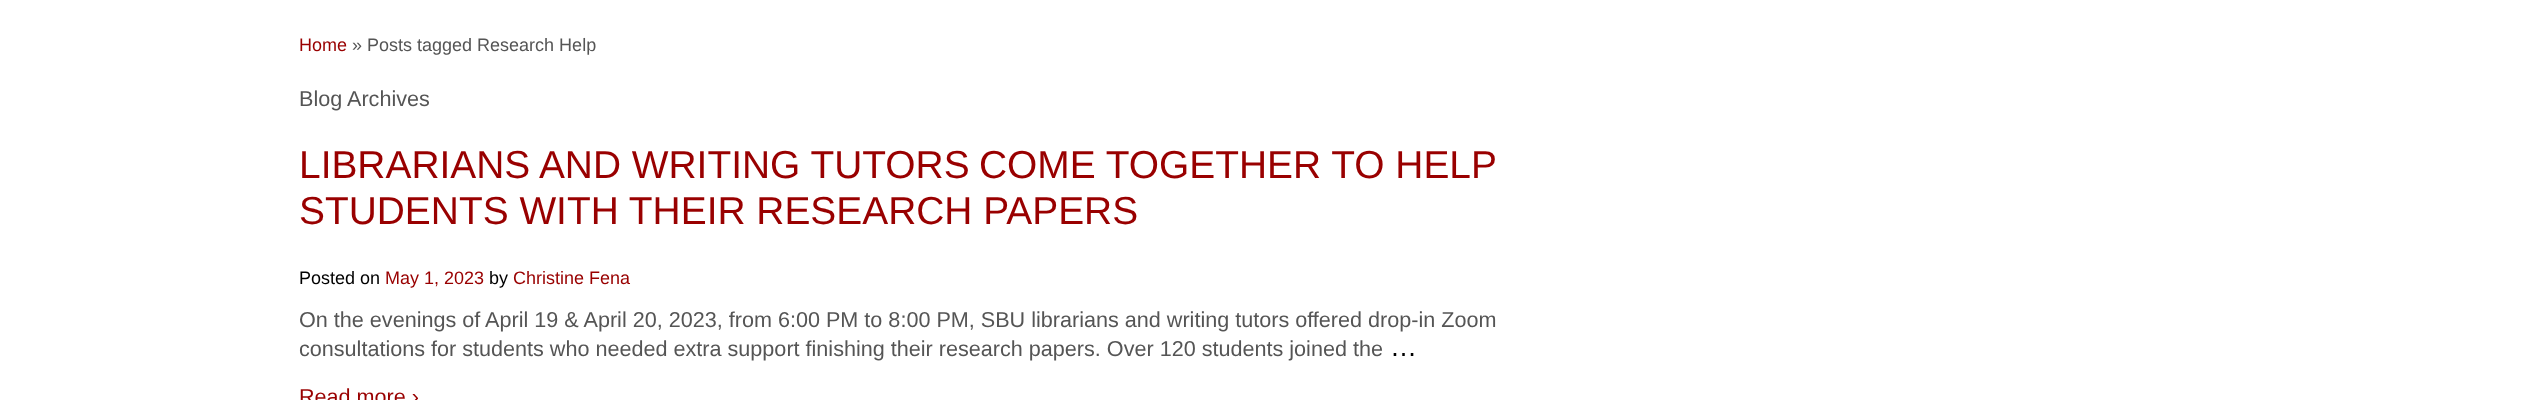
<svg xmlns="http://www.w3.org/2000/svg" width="2536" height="400">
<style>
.a{font:18px Liberation Sans;fill:#900}
.b{font:18px Liberation Sans;fill:#555}
.c{font:21.6px Liberation Sans;fill:#555}
.d{font:38.9px Liberation Sans;fill:#900}
.e{font:18px Liberation Sans;fill:#000}
.f{font:27px Liberation Sans;fill:#000}
.g{font:21.6px Liberation Sans;fill:#900}
</style>
<rect width="100%" height="100%" fill="#fff"/>
<text class="a" x="299" y="51">Home</text>
<text class="b" x="352" y="51">» Posts tagged Research Help</text>
<text class="c" x="299" y="106">Blog Archives</text>
<text class="d" x="299" y="178">LIBRARIANS AND WRITING TUTORS</text>
<text class="d" x="979" y="178">COME TOGETHER TO HELP</text>
<text class="d" x="299" y="224">STUDENTS WITH THEIR RESEARCH PAPERS</text>
<text class="e" x="299" y="284">Posted on</text>
<text class="a" x="385" y="284">May 1, 2023</text>
<text class="e" x="489" y="284">by</text>
<text class="a" x="513" y="284">Christine Fena</text>
<text class="c" x="299" y="327">On the evenings of April 19 &amp; April 20, 2023, from 6:00 PM to 8:00 PM, SBU librarians and writing tutors offered drop-in Zoom</text>
<text class="c" x="299" y="356">consultations for students who needed extra support finishing their research papers. Over 120 students joined the</text>
<text class="f" x="1390" y="356">…</text>
<text class="g" x="299" y="404">Read more ›</text>
</svg>
